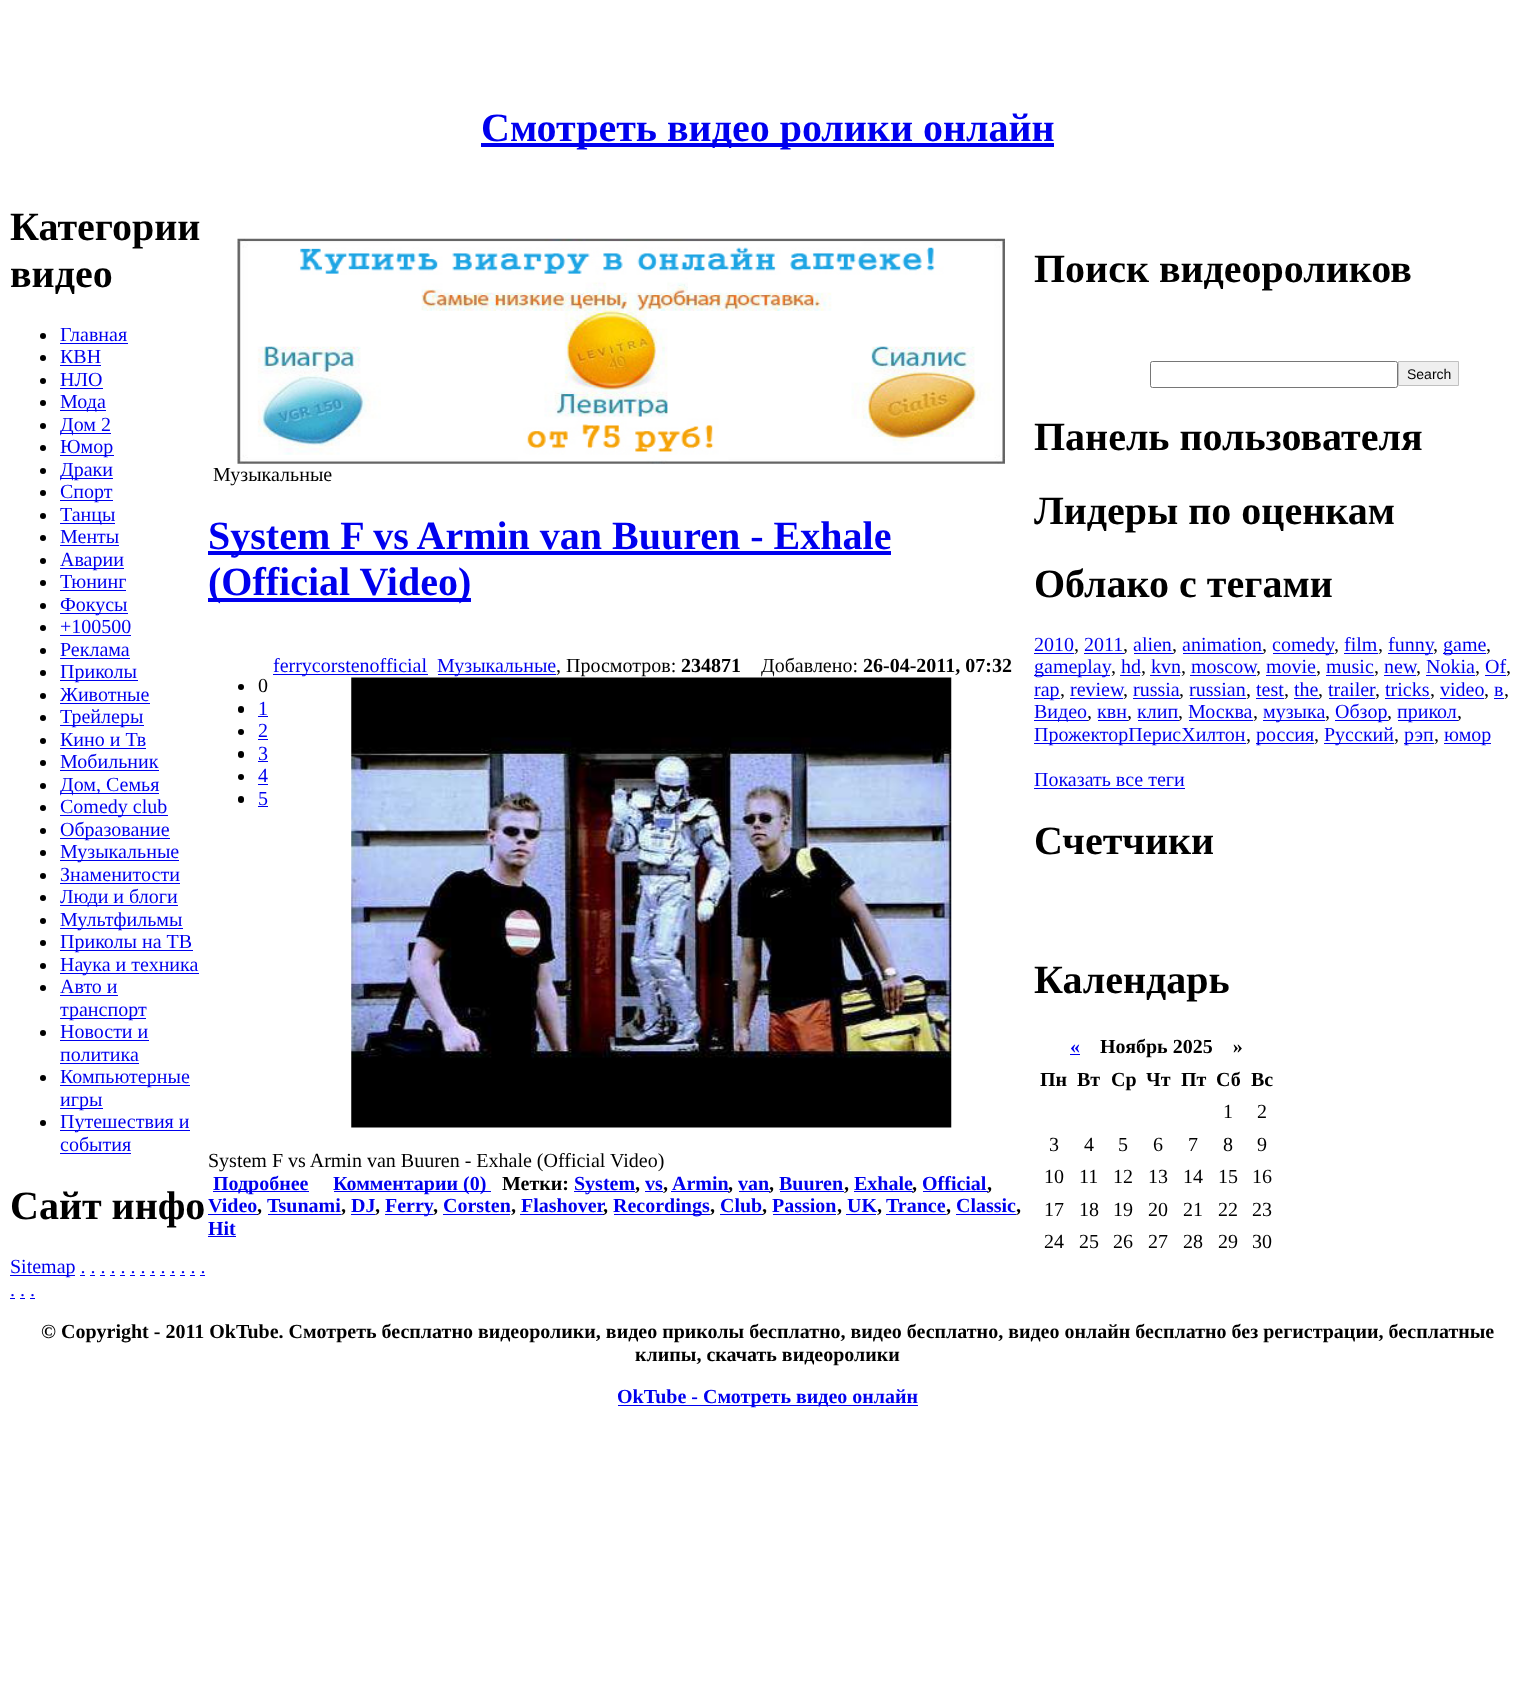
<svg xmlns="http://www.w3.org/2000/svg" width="1535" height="1702">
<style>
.a{font:bold 40px Liberation Serif;fill:#00e}
.b{font:bold 40px Liberation Serif;fill:#000}
.c{font:20px Liberation Serif;fill:#00e}
.d{font:20px Liberation Serif;fill:#000}
.e{font:bold 20px Liberation Serif;fill:#000}
.f{font:bold 20px Liberation Serif;fill:#00e}
.g{font:14px Liberation Sans;fill:#000}
</style>
<rect width="100%" height="100%" fill="#fff"/>
<path fill="#00e" d="M481 143h573v4H481z"/>
<circle fill="#000" cx="43" cy="336" r="3"/>
<path fill="#00e" d="M60 343h68v1H60z"/>
<circle fill="#000" cx="43" cy="358" r="3"/>
<path fill="#00e" d="M60 365h41v1H60z"/>
<circle fill="#000" cx="43" cy="381" r="3"/>
<path fill="#00e" d="M60 388h43v1H60z"/>
<circle fill="#000" cx="43" cy="403" r="3"/>
<path fill="#00e" d="M60 410h46v1H60z"/>
<circle fill="#000" cx="43" cy="426" r="3"/>
<path fill="#00e" d="M60 433h51v1H60z"/>
<circle fill="#000" cx="43" cy="448" r="3"/>
<path fill="#00e" d="M60 455h54v1H60z"/>
<circle fill="#000" cx="43" cy="471" r="3"/>
<path fill="#00e" d="M60 478h53v1H60z"/>
<circle fill="#000" cx="43" cy="493" r="3"/>
<path fill="#00e" d="M60 500h53v1H60z"/>
<circle fill="#000" cx="43" cy="516" r="3"/>
<path fill="#00e" d="M60 523h55v1H60z"/>
<circle fill="#000" cx="43" cy="538" r="3"/>
<path fill="#00e" d="M60 545h59v1H60z"/>
<circle fill="#000" cx="43" cy="561" r="3"/>
<path fill="#00e" d="M60 568h64v1H60z"/>
<circle fill="#000" cx="43" cy="583" r="3"/>
<path fill="#00e" d="M60 590h66v1H60z"/>
<circle fill="#000" cx="43" cy="606" r="3"/>
<path fill="#00e" d="M60 613h68v1H60z"/>
<circle fill="#000" cx="43" cy="628" r="3"/>
<path fill="#00e" d="M60 635h71v1H60z"/>
<circle fill="#000" cx="43" cy="651" r="3"/>
<path fill="#00e" d="M60 658h70v1H60z"/>
<circle fill="#000" cx="43" cy="673" r="3"/>
<path fill="#00e" d="M60 680h78v1H60z"/>
<circle fill="#000" cx="43" cy="696" r="3"/>
<path fill="#00e" d="M60 703h90v1H60z"/>
<circle fill="#000" cx="43" cy="718" r="3"/>
<path fill="#00e" d="M60 725h84v1H60z"/>
<circle fill="#000" cx="43" cy="741" r="3"/>
<path fill="#00e" d="M60 748h86v1H60z"/>
<circle fill="#000" cx="43" cy="763" r="3"/>
<path fill="#00e" d="M60 770h99v1H60z"/>
<circle fill="#000" cx="43" cy="786" r="3"/>
<path fill="#00e" d="M60 793h99v1H60z"/>
<circle fill="#000" cx="43" cy="808" r="3"/>
<path fill="#00e" d="M60 815h108v1H60z"/>
<circle fill="#000" cx="43" cy="831" r="3"/>
<path fill="#00e" d="M60 838h110v1H60z"/>
<circle fill="#000" cx="43" cy="853" r="3"/>
<path fill="#00e" d="M60 860h119v1H60z"/>
<circle fill="#000" cx="43" cy="876" r="3"/>
<path fill="#00e" d="M60 883h120v1H60z"/>
<circle fill="#000" cx="43" cy="898" r="3"/>
<path fill="#00e" d="M60 905h118v1H60z"/>
<circle fill="#000" cx="43" cy="921" r="3"/>
<path fill="#00e" d="M60 928h123v1H60z"/>
<circle fill="#000" cx="43" cy="943" r="3"/>
<path fill="#00e" d="M60 950h133v1H60z"/>
<circle fill="#000" cx="43" cy="966" r="3"/>
<path fill="#00e" d="M60 973h139v1H60z"/>
<circle fill="#000" cx="43" cy="988" r="3"/>
<path fill="#00e" d="M60 995h58v1H60z"/>
<path fill="#00e" d="M60 1018h86v1H60z"/>
<circle fill="#000" cx="43" cy="1033" r="3"/>
<path fill="#00e" d="M60 1040h89v1H60z"/>
<path fill="#00e" d="M60 1063h79v1H60z"/>
<circle fill="#000" cx="43" cy="1078" r="3"/>
<path fill="#00e" d="M60 1085h130v1H60z"/>
<path fill="#00e" d="M60 1108h43v1H60z"/>
<circle fill="#000" cx="43" cy="1123" r="3"/>
<path fill="#00e" d="M60 1130h130v1H60z"/>
<path fill="#00e" d="M60 1153h71v1H60z"/>
<path fill="#00e" d="M10 1275h65v1H10z"/>
<path fill="#00e" d="M80 1275h5v1H80z"/>
<path fill="#00e" d="M90 1275h5v1H90z"/>
<path fill="#00e" d="M100 1275h5v1H100z"/>
<path fill="#00e" d="M110 1275h5v1H110z"/>
<path fill="#00e" d="M120 1275h5v1H120z"/>
<path fill="#00e" d="M130 1275h5v1H130z"/>
<path fill="#00e" d="M140 1275h5v1H140z"/>
<path fill="#00e" d="M150 1275h5v1H150z"/>
<path fill="#00e" d="M160 1275h5v1H160z"/>
<path fill="#00e" d="M170 1275h5v1H170z"/>
<path fill="#00e" d="M180 1275h5v1H180z"/>
<path fill="#00e" d="M190 1275h5v1H190z"/>
<path fill="#00e" d="M200 1275h5v1H200z"/>
<path fill="#00e" d="M10 1298h5v1H10z"/>
<path fill="#00e" d="M20 1298h5v1H20z"/>
<path fill="#00e" d="M30 1298h5v1H30z"/>
<image href="1.png" x="237" y="238" width="768" height="226"/>
<path fill="#00e" d="M208 551h683v4H208z"/>
<path fill="#00e" d="M208 598h263v4H208z"/>
<path fill="#00e" d="M273 674h155v1H273z"/>
<path fill="#00e" d="M438 674h118v1H438z"/>
<circle fill="#000" cx="241" cy="687" r="3"/>
<rect fill="#000" x="238" y="706" width="6" height="7" rx="3"/>
<path fill="#00e" d="M258 716h10v1H258z"/>
<circle fill="#000" cx="241" cy="732" r="3"/>
<path fill="#00e" d="M258 739h10v1H258z"/>
<rect fill="#000" x="238" y="751" width="6" height="7" rx="3"/>
<path fill="#00e" d="M258 761h10v1H258z"/>
<circle fill="#000" cx="241" cy="777" r="3"/>
<path fill="#00e" d="M258 784h10v1H258z"/>
<rect fill="#000" x="238" y="796" width="6" height="7" rx="3"/>
<path fill="#00e" d="M258 806h10v1H258z"/>
<image href="2.png" x="351" y="677" width="601" height="451"/>
<path fill="#00e" d="M213 1191h96v1H213z"/>
<path fill="#00e" d="M334 1191h157v1H334z"/>
<path fill="#00e" d="M574 1191h61v1H574z"/>
<path fill="#00e" d="M645 1191h18v1H645z"/>
<path fill="#00e" d="M671 1191h58v1H671z"/>
<path fill="#00e" d="M739 1191h31v1H739z"/>
<path fill="#00e" d="M780 1191h64v1H780z"/>
<path fill="#00e" d="M854 1191h59v1H854z"/>
<path fill="#00e" d="M923 1191h65v1H923z"/>
<path fill="#00e" d="M208 1214h50v1H208z"/>
<path fill="#00e" d="M268 1214h73v1H268z"/>
<path fill="#00e" d="M351 1214h24v1H351z"/>
<path fill="#00e" d="M385 1214h48v1H385z"/>
<path fill="#00e" d="M443 1214h67v1H443z"/>
<path fill="#00e" d="M520 1214h84v1H520z"/>
<path fill="#00e" d="M614 1214h96v1H614z"/>
<path fill="#00e" d="M720 1214h43v1H720z"/>
<path fill="#00e" d="M773 1214h63v1H773z"/>
<path fill="#00e" d="M846 1214h30v1H846z"/>
<path fill="#00e" d="M886 1214h60v1H886z"/>
<path fill="#00e" d="M956 1214h60v1H956z"/>
<path fill="#00e" d="M208 1236h28v1H208z"/>
<rect fill="none" stroke="#767676" x="1150.5" y="361.5" width="247" height="26" rx="2"/>
<path fill="#efefef" stroke="#c0c0c0" d="M1398.5 361.5h60v24H1398.5z"/>
<path fill="#00e" d="M1034 653h40v1H1034z"/>
<path fill="#00e" d="M1084 653h40v1H1084z"/>
<path fill="#00e" d="M1134 653h39v1H1134z"/>
<path fill="#00e" d="M1183 653h80v1H1183z"/>
<path fill="#00e" d="M1273 653h61v1H1273z"/>
<path fill="#00e" d="M1344 653h34v1H1344z"/>
<path fill="#00e" d="M1388 653h45v1H1388z"/>
<path fill="#00e" d="M1443 653h43v1H1443z"/>
<path fill="#00e" d="M1034 675h76v1H1034z"/>
<path fill="#00e" d="M1120 675h20v1H1120z"/>
<path fill="#00e" d="M1150 675h30v1H1150z"/>
<path fill="#00e" d="M1190 675h66v1H1190z"/>
<path fill="#00e" d="M1266 675h50v1H1266z"/>
<path fill="#00e" d="M1326 675h48v1H1326z"/>
<path fill="#00e" d="M1384 675h32v1H1384z"/>
<path fill="#00e" d="M1426 675h49v1H1426z"/>
<path fill="#00e" d="M1485 675h21v1H1485z"/>
<path fill="#00e" d="M1034 698h26v1H1034z"/>
<path fill="#00e" d="M1070 698h53v1H1070z"/>
<path fill="#00e" d="M1133 698h47v1H1133z"/>
<path fill="#00e" d="M1190 698h56v1H1190z"/>
<path fill="#00e" d="M1256 698h28v1H1256z"/>
<path fill="#00e" d="M1294 698h25v1H1294z"/>
<path fill="#00e" d="M1329 698h46v1H1329z"/>
<path fill="#00e" d="M1385 698h45v1H1385z"/>
<path fill="#00e" d="M1440 698h44v1H1440z"/>
<path fill="#00e" d="M1494 698h10v1H1494z"/>
<path fill="#00e" d="M1034 720h54v1H1034z"/>
<path fill="#00e" d="M1098 720h30v1H1098z"/>
<path fill="#00e" d="M1138 720h41v1H1138z"/>
<path fill="#00e" d="M1189 720h64v1H1189z"/>
<path fill="#00e" d="M1263 720h62v1H1263z"/>
<path fill="#00e" d="M1335 720h53v1H1335z"/>
<path fill="#00e" d="M1398 720h60v1H1398z"/>
<path fill="#00e" d="M1034 743h212v1H1034z"/>
<path fill="#00e" d="M1256 743h58v1H1256z"/>
<path fill="#00e" d="M1324 743h70v1H1324z"/>
<path fill="#00e" d="M1404 743h30v1H1404z"/>
<path fill="#00e" d="M1444 743h47v1H1444z"/>
<path fill="#00e" d="M1034 788h151v1H1034z"/>
<path fill="#00e" d="M1070 1054h10v1H1070z"/>
<path fill="#00e" d="M618 1405h300v1H618z"/>
<text class="a" x="481" y="141">Смотреть видео ролики онлайн</text>
<text class="b" x="10" y="240">Категории</text>
<text class="b" x="10" y="287">видео</text>
<text class="c" x="60" y="341">Главная</text>
<text class="c" x="60" y="363">КВН</text>
<text class="c" x="60" y="386">НЛО</text>
<text class="c" x="60" y="408">Мода</text>
<text class="c" x="60" y="431">Дом 2</text>
<text class="c" x="60" y="453">Юмор</text>
<text class="c" x="60" y="476">Драки</text>
<text class="c" x="60" y="498">Спорт</text>
<text class="c" x="60" y="521">Танцы</text>
<text class="c" x="60" y="543">Менты</text>
<text class="c" x="60" y="566">Аварии</text>
<text class="c" x="60" y="588">Тюнинг</text>
<text class="c" x="60" y="611">Фокусы</text>
<text class="c" x="60" y="633">+100500</text>
<text class="c" x="60" y="656">Реклама</text>
<text class="c" x="60" y="678">Приколы</text>
<text class="c" x="60" y="701">Животные</text>
<text class="c" x="60" y="723">Трейлеры</text>
<text class="c" x="60" y="746">Кино и Тв</text>
<text class="c" x="60" y="768">Мобильник</text>
<text class="c" x="60" y="791">Дом, Семья</text>
<text class="c" x="60" y="813">Comedy club</text>
<text class="c" x="60" y="836">Образование</text>
<text class="c" x="60" y="858">Музыкальные</text>
<text class="c" x="60" y="881">Знаменитости</text>
<text class="c" x="60" y="903">Люди и блоги</text>
<text class="c" x="60" y="926">Мультфильмы</text>
<text class="c" x="60" y="948">Приколы на ТВ</text>
<text class="c" x="60" y="971">Наука и техника</text>
<text class="c" x="60" y="993">Авто и</text>
<text class="c" x="60" y="1016">транспорт</text>
<text class="c" x="60" y="1038">Новости и</text>
<text class="c" x="60" y="1061">политика</text>
<text class="c" x="60" y="1083">Компьютерные</text>
<text class="c" x="60" y="1106">игры</text>
<text class="c" x="60" y="1128">Путешествия и</text>
<text class="c" x="60" y="1151">события</text>
<text class="b" x="10" y="1219">Сайт инфо</text>
<text class="c" x="10" y="1273">Sitemap . . . . . . . . . . . . .</text>
<text class="c" x="10" y="1296">. . .</text>
<text class="d" x="213" y="481">Музыкальные</text>
<text class="a" x="208" y="549">System F vs Armin van Buuren - Exhale</text>
<text class="a" x="208" y="595">(Official Video)</text>
<text class="c" x="273" y="672">ferrycorstenofficial</text>
<text class="c" x="437" y="672">Музыкальные</text>
<text class="d" x="556" y="672">, Просмотров:</text>
<text class="e" x="681" y="672">234871</text>
<text class="d" x="761" y="672">Добавлено:</text>
<text class="e" x="863" y="672">26-04-2011, 07:32</text>
<text class="d" x="258" y="692">0</text>
<text class="c" x="258" y="715">1</text>
<text class="c" x="258" y="737">2</text>
<text class="c" x="258" y="760">3</text>
<text class="c" x="258" y="782">4</text>
<text class="c" x="258" y="805">5</text>
<text class="d" x="208" y="1167">System F vs Armin van Buuren - Exhale (Official Video)</text>
<text class="f" x="213" y="1190">Подробнее</text>
<text class="f" x="333" y="1190">Комментарии (0)</text>
<text class="e" x="502" y="1190">Метки:</text>
<text class="f" x="574" y="1190">System</text>
<text class="e" x="635" y="1190">,</text>
<text class="f" x="645" y="1190">vs</text>
<text class="e" x="663" y="1190">,</text>
<text class="f" x="672" y="1190">Armin</text>
<text class="e" x="728" y="1190">,</text>
<text class="f" x="738" y="1190">van</text>
<text class="e" x="769" y="1190">,</text>
<text class="f" x="779" y="1190">Buuren</text>
<text class="e" x="844" y="1190">,</text>
<text class="f" x="854" y="1190">Exhale</text>
<text class="e" x="912" y="1190">,</text>
<text class="f" x="922" y="1190">Official</text>
<text class="e" x="987" y="1190">,</text>
<text class="f" x="208" y="1212">Video</text>
<text class="e" x="257" y="1212">,</text>
<text class="f" x="267" y="1212">Tsunami</text>
<text class="e" x="341" y="1212">,</text>
<text class="f" x="351" y="1212">DJ</text>
<text class="e" x="375" y="1212">,</text>
<text class="f" x="385" y="1212">Ferry</text>
<text class="e" x="433" y="1212">,</text>
<text class="f" x="443" y="1212">Corsten</text>
<text class="e" x="511" y="1212">,</text>
<text class="f" x="521" y="1212">Flashover</text>
<text class="e" x="603" y="1212">,</text>
<text class="f" x="613" y="1212">Recordings</text>
<text class="e" x="710" y="1212">,</text>
<text class="f" x="720" y="1212">Club</text>
<text class="e" x="762" y="1212">,</text>
<text class="f" x="772" y="1212">Passion</text>
<text class="e" x="837" y="1212">,</text>
<text class="f" x="847" y="1212">UK</text>
<text class="e" x="877" y="1212">,</text>
<text class="f" x="886" y="1212">Trance</text>
<text class="e" x="946" y="1212">,</text>
<text class="f" x="956" y="1212">Classic</text>
<text class="e" x="1016" y="1212">,</text>
<text class="f" x="208" y="1235">Hit</text>
<text class="b" x="1034" y="282">Поиск видеороликов</text>
<text class="g" x="1407" y="379">Search</text>
<text class="b" x="1034" y="450">Панель пользователя</text>
<text class="b" x="1034" y="524">Лидеры по оценкам</text>
<text class="b" x="1034" y="597">Облако с тегами</text>
<text class="c" x="1034" y="651">2010</text>
<text class="d" x="1074" y="651">,</text>
<text class="c" x="1084" y="651">2011</text>
<text class="d" x="1123" y="651">,</text>
<text class="c" x="1133" y="651">alien</text>
<text class="d" x="1172" y="651">,</text>
<text class="c" x="1182" y="651">animation</text>
<text class="d" x="1262" y="651">,</text>
<text class="c" x="1272" y="651">comedy</text>
<text class="d" x="1334" y="651">,</text>
<text class="c" x="1344" y="651">film</text>
<text class="d" x="1378" y="651">,</text>
<text class="c" x="1388" y="651">funny</text>
<text class="c" x="1443" y="651">game</text>
<text class="d" x="1433" y="651">,</text>
<text class="d" x="1486" y="651">,</text>
<text class="c" x="1034" y="673">gameplay</text>
<text class="d" x="1111" y="673">,</text>
<text class="c" x="1121" y="673">hd</text>
<text class="d" x="1141" y="673">,</text>
<text class="c" x="1151" y="673">kvn</text>
<text class="d" x="1181" y="673">,</text>
<text class="c" x="1191" y="673">moscow</text>
<text class="c" x="1266" y="673">movie</text>
<text class="c" x="1326" y="673">music</text>
<text class="c" x="1384" y="673">new</text>
<text class="c" x="1426" y="673">Nokia</text>
<text class="c" x="1485" y="673">Of</text>
<text class="d" x="1256" y="673">,</text>
<text class="d" x="1316" y="673">,</text>
<text class="d" x="1374" y="673">,</text>
<text class="d" x="1416" y="673">,</text>
<text class="d" x="1475" y="673">,</text>
<text class="d" x="1506" y="673">,</text>
<text class="c" x="1034" y="696">rap</text>
<text class="d" x="1060" y="696">,</text>
<text class="c" x="1070" y="696">review</text>
<text class="d" x="1123" y="696">,</text>
<text class="c" x="1133" y="696">russia</text>
<text class="d" x="1179" y="696">,</text>
<text class="c" x="1189" y="696">russian</text>
<text class="d" x="1246" y="696">,</text>
<text class="c" x="1256" y="696">test</text>
<text class="d" x="1284" y="696">,</text>
<text class="c" x="1294" y="696">the</text>
<text class="d" x="1318" y="696">,</text>
<text class="c" x="1328" y="696">trailer</text>
<text class="d" x="1375" y="696">,</text>
<text class="c" x="1385" y="696">tricks</text>
<text class="d" x="1430" y="696">,</text>
<text class="c" x="1440" y="696">video</text>
<text class="d" x="1484" y="696">,</text>
<text class="c" x="1494" y="696">в</text>
<text class="d" x="1504" y="696">,</text>
<text class="c" x="1034" y="718">Видео</text>
<text class="d" x="1087" y="718">,</text>
<text class="c" x="1097" y="718">квн</text>
<text class="d" x="1127" y="718">,</text>
<text class="c" x="1137" y="718">клип</text>
<text class="d" x="1178" y="718">,</text>
<text class="c" x="1188" y="718">Москва</text>
<text class="d" x="1253" y="718">,</text>
<text class="c" x="1263" y="718">музыка</text>
<text class="d" x="1325" y="718">,</text>
<text class="c" x="1335" y="718">Обзор</text>
<text class="d" x="1387" y="718">,</text>
<text class="c" x="1397" y="718">прикол</text>
<text class="d" x="1457" y="718">,</text>
<text class="c" x="1034" y="741">ПрожекторПерисХилтон</text>
<text class="d" x="1246" y="741">,</text>
<text class="c" x="1256" y="741">россия</text>
<text class="d" x="1314" y="741">,</text>
<text class="c" x="1324" y="741">Русский</text>
<text class="d" x="1394" y="741">,</text>
<text class="c" x="1404" y="741">рэп</text>
<text class="d" x="1434" y="741">,</text>
<text class="c" x="1444" y="741">юмор</text>
<text class="c" x="1034" y="786">Показать все теги</text>
<text class="b" x="1034" y="854">Счетчики</text>
<text class="b" x="1034" y="993">Календарь</text>
<text class="f" x="1070" y="1053">«</text>
<text class="e" xml:space="preserve" x="1100" y="1053">Ноябрь 2025    »</text>
<text class="e" x="1040" y="1086">Пн</text>
<text class="e" x="1077" y="1086">Вт</text>
<text class="e" x="1111" y="1086">Ср</text>
<text class="e" x="1146" y="1086">Чт</text>
<text class="e" x="1181" y="1086">Пт</text>
<text class="e" x="1216" y="1086">Сб</text>
<text class="e" x="1251" y="1086">Вс</text>
<text class="d" x="1223" y="1118">1</text>
<text class="d" x="1257" y="1118">2</text>
<text class="d" x="1049" y="1151">3</text>
<text class="d" x="1084" y="1151">4</text>
<text class="d" x="1118" y="1151">5</text>
<text class="d" x="1153" y="1151">6</text>
<text class="d" x="1188" y="1151">7</text>
<text class="d" x="1223" y="1151">8</text>
<text class="d" x="1257" y="1151">9</text>
<text class="d" x="1044" y="1183">10</text>
<text class="d" x="1079" y="1183">11</text>
<text class="d" x="1113" y="1183">12</text>
<text class="d" x="1148" y="1183">13</text>
<text class="d" x="1183" y="1183">14</text>
<text class="d" x="1218" y="1183">15</text>
<text class="d" x="1252" y="1183">16</text>
<text class="d" x="1044" y="1216">17</text>
<text class="d" x="1079" y="1216">18</text>
<text class="d" x="1113" y="1216">19</text>
<text class="d" x="1148" y="1216">20</text>
<text class="d" x="1183" y="1216">21</text>
<text class="d" x="1218" y="1216">22</text>
<text class="d" x="1252" y="1216">23</text>
<text class="d" x="1044" y="1248">24</text>
<text class="d" x="1079" y="1248">25</text>
<text class="d" x="1113" y="1248">26</text>
<text class="d" x="1148" y="1248">27</text>
<text class="d" x="1183" y="1248">28</text>
<text class="d" x="1218" y="1248">29</text>
<text class="d" x="1252" y="1248">30</text>
<text class="e" x="41" y="1338">© Copyright - 2011 OkTube. Смотреть бесплатно видеоролики, видео приколы бесплатно, видео бесплатно, видео онлайн бесплатно без регистрации, бесплатные</text>
<text class="e" x="635" y="1361">клипы, скачать видеоролики</text>
<text class="f" x="617" y="1403">OkTube - Смотреть видео онлайн</text>
</svg>
